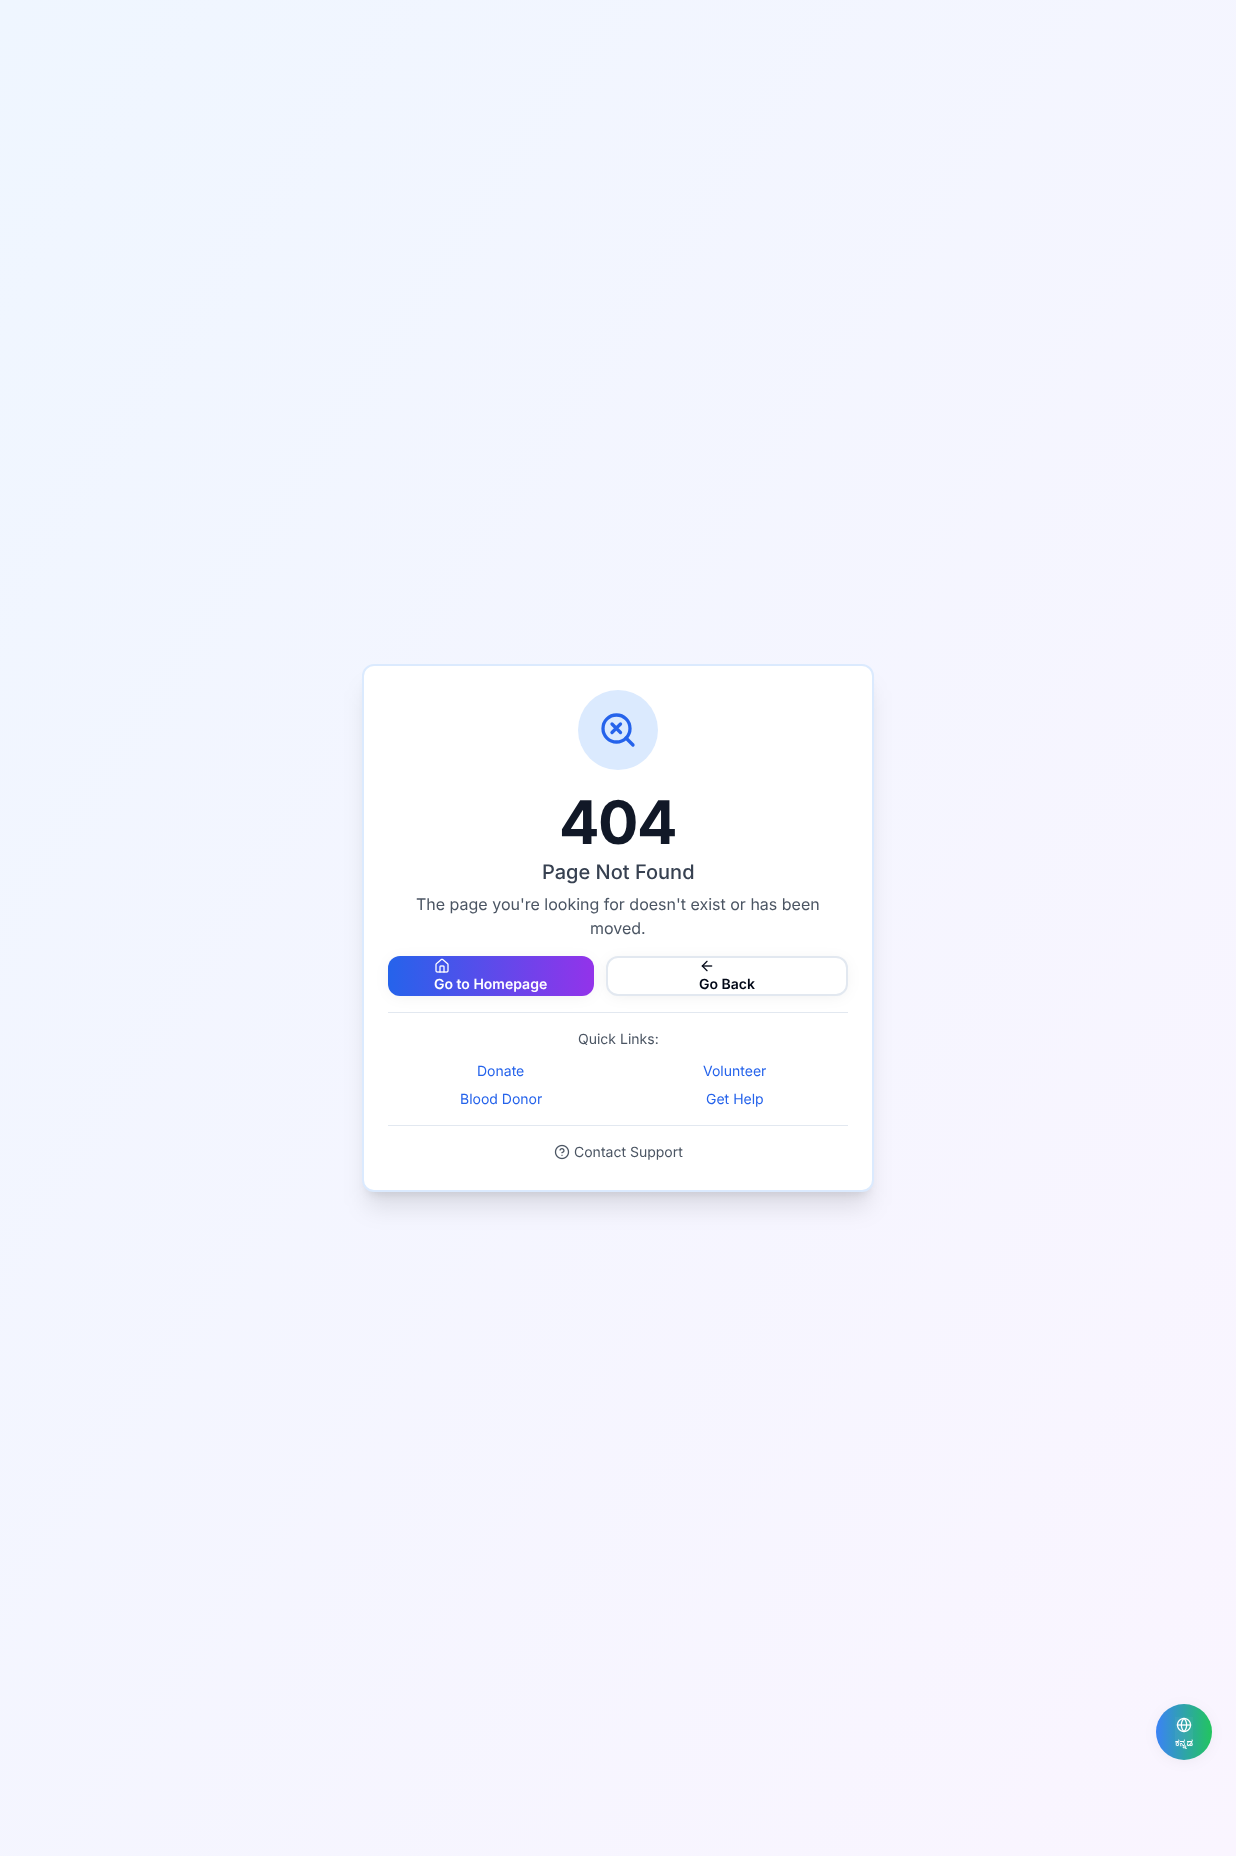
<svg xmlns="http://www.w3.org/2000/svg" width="1236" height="1856">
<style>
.a{font:bold 60px Inter;letter-spacing:-1.5px;fill:#111827}
.b{font:500 20px Inter;fill:#374151}
.c{font:16px Inter;fill:#4b5563}
.d{font:600 14px Inter;fill:#fff}
.e{font:600 14px Inter;fill:#020817}
.f{font:14px Inter;fill:#4b5563}
.g{font:14px Inter;fill:#2563eb}
.h{font:bold 10px FreeSerif;fill:#fff}
</style>
<defs>
<linearGradient id="g1" gradientUnits="userSpaceOnUse" x1="-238" y1="358" x2="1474" y2="1498"><stop offset="0" stop-color="#eff6ff"/><stop offset="1" stop-color="#faf5ff"/></linearGradient>
<linearGradient id="g2" gradientUnits="userSpaceOnUse" x1="388" y1="976" x2="594" y2="976"><stop offset="0" stop-color="#2563eb"/><stop offset="1" stop-color="#9333ea"/></linearGradient>
<linearGradient id="g3" gradientUnits="userSpaceOnUse" x1="1156" y1="1732" x2="1212" y2="1732"><stop offset="0" stop-color="#3b82f6"/><stop offset="1" stop-color="#22c55e"/></linearGradient>
</defs>
<rect width="100%" height="100%" fill="#fff"/>
<path fill="url(#g1)" d="M0 0h1236v1856H0z"/>
<rect fill="#0000001a" filter="blur(5px)" x="368" y="678" width="500" height="516" rx="6"/>
<rect fill="#0000001a" filter="blur(12.5px)" x="367" y="689" width="502" height="518" rx="7"/>
<rect fill="#fff" stroke="#dbeafe" stroke-width="2" x="363" y="665" width="510" height="526" rx="11"/>
<circle fill="#dbeafe" cx="618" cy="730" r="40"/>
<path fill="none" stroke="#2563eb" stroke-width="3.3" stroke-linecap="round" stroke-linejoin="round" d="M620.5 724l-8.5 8.5m0-8.5l8.5 8.5"/>
<circle fill="none" stroke="#2563eb" stroke-width="3.3" cx="616.5" cy="728.5" r="13.5"/>
<path fill="none" stroke="#2563eb" stroke-width="3.3" stroke-linecap="round" stroke-linejoin="round" d="M633 745l-7-7"/>
<path fill="#e2e8f0" d="M388 1012h460v1H388z"/>
<rect fill="#00000012" filter="blur(7.5px)" x="391" y="961" width="200" height="34" rx="9"/>
<rect fill="url(#g2)" x="388" y="956" width="206" height="40" rx="12"/>
<image href="1.png" x="435" y="958" width="14" height="15"/>
<rect fill="#00000012" filter="blur(7.5px)" x="609" y="961" width="236" height="34" rx="9"/>
<rect fill="#fff" stroke="#e2e8f0" stroke-width="2" x="607" y="957" width="240" height="38" rx="11"/>
<image href="2.png" x="701" y="960" width="12" height="12"/>
<path fill="#e2e8f0" d="M388 1125h460v1H388z"/>
<image href="3.png" x="554" y="1144" width="16" height="16"/>
<rect fill="#00000012" filter="blur(7.5px)" x="1159" y="1709" width="50" height="50" rx="25"/>
<circle fill="url(#g3)" cx="1184" cy="1732" r="28"/>
<path fill="#ffffff0a" d="M1175 1717h18v30H1175z"/>
<image href="4.png" x="1176" y="1717" width="16" height="16"/>
<text class="a" x="559" y="844">404</text>
<text class="b" x="542" y="879">Page Not Found</text>
<text class="c" x="416" y="910">The page you're looking for doesn't exist or has been</text>
<text class="c" x="590" y="934">moved.</text>
<text class="d" x="434" y="989">Go to Homepage</text>
<text class="e" x="699" y="989">Go Back</text>
<text class="f" x="578" y="1044">Quick Links:</text>
<text class="g" x="477" y="1076">Donate</text>
<text class="g" x="703" y="1076">Volunteer</text>
<text class="g" x="460" y="1104">Blood Donor</text>
<text class="g" x="706" y="1104">Get Help</text>
<text class="f" x="574" y="1157">Contact Support</text>
<text class="h" x="1175" y="1746">ಕನ್ನಡ</text>
</svg>
